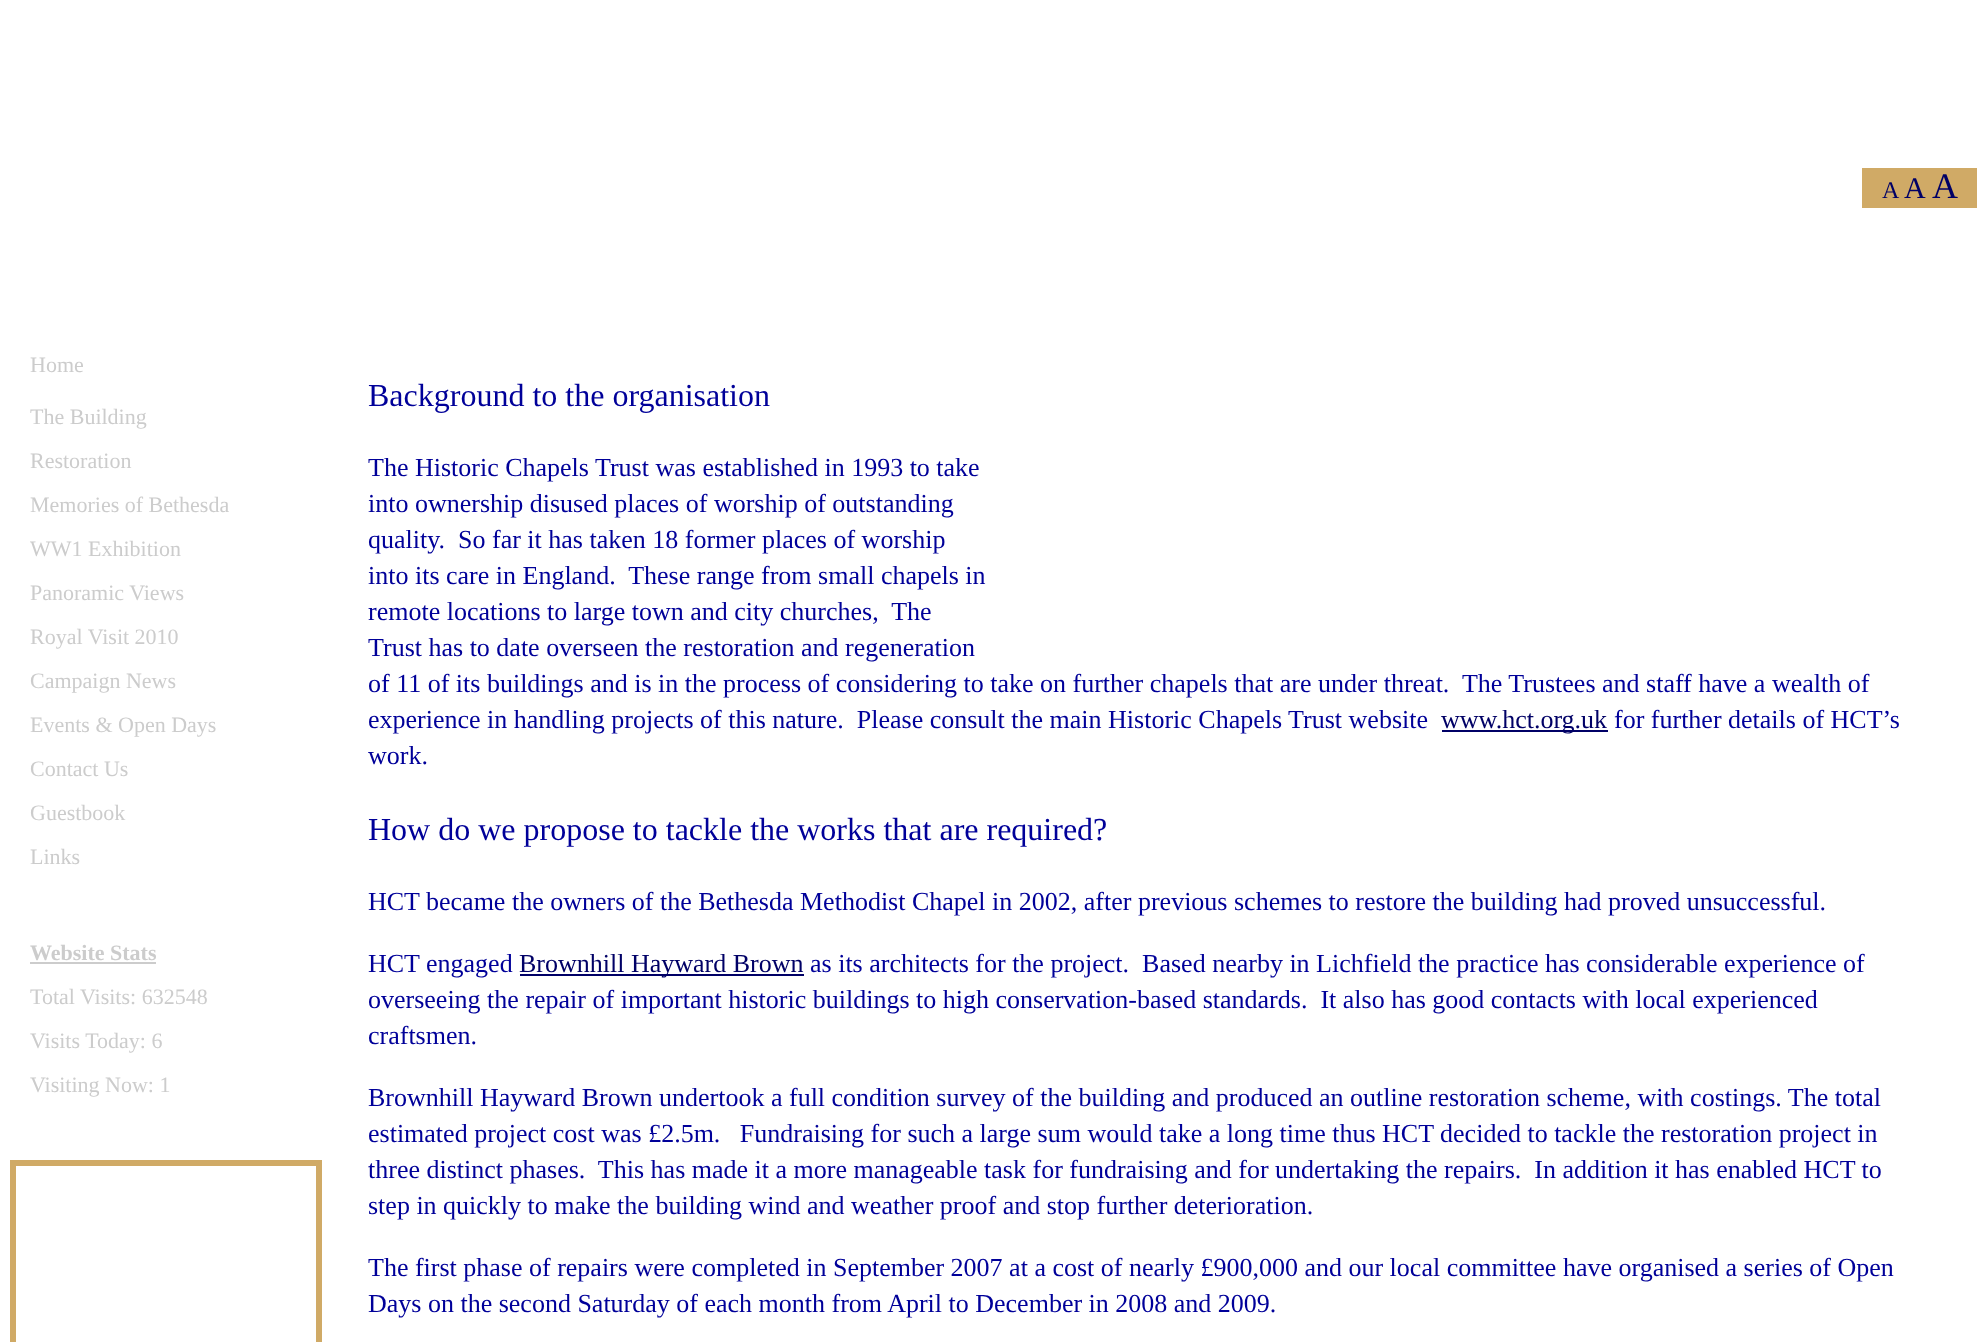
<svg xmlns="http://www.w3.org/2000/svg" width="1977" height="1342">
<style>
.a{font:24px Liberation Serif;fill:#006}
.b{font:30px Liberation Serif;fill:#006}
.c{font:36px Liberation Serif;fill:#006}
.d{font:22px Liberation Serif;fill:#ccc}
.e{font:bold 22px Liberation Serif;fill:#ccc}
.f{font:32px Liberation Serif;fill:#009}
.g{font:26px Liberation Serif;fill:#009}
.h{font:26px Liberation Serif;fill:#006}
</style>
<rect width="100%" height="100%" fill="#fff"/>
<path fill="#d0aa66" d="M1862 168h115v40H1862z"/>
<path fill="#ccc" d="M30 962h126v2H30z"/>
<path fill="none" stroke="#d0aa66" stroke-width="6" d="M13 1163h306v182H13z"/>
<path fill="#006" d="M1442 730h166v2H1442z"/>
<path fill="#006" d="M520 974h284v2H520z"/>
<text class="a" x="1882" y="198">A</text>
<text class="b" x="1904" y="198">A</text>
<text class="c" x="1932" y="198">A</text>
<text class="d" x="30" y="372">Home</text>
<text class="d" x="30" y="424">The Building</text>
<text class="d" x="30" y="468">Restoration</text>
<text class="d" x="30" y="512">Memories of Bethesda</text>
<text class="d" x="30" y="556">WW1 Exhibition</text>
<text class="d" x="30" y="600">Panoramic Views</text>
<text class="d" x="30" y="644">Royal Visit 2010</text>
<text class="d" x="30" y="688">Campaign News</text>
<text class="d" x="30" y="732">Events &amp; Open Days</text>
<text class="d" x="30" y="776">Contact Us</text>
<text class="d" x="30" y="820">Guestbook</text>
<text class="d" x="30" y="864">Links</text>
<text class="e" x="30" y="960">Website Stats</text>
<text class="d" x="30" y="1004">Total Visits: 632548</text>
<text class="d" x="30" y="1048">Visits Today: 6</text>
<text class="d" x="30" y="1092">Visiting Now: 1</text>
<text class="f" x="368" y="406">Background to the organisation</text>
<text class="g" x="368" y="476">The Historic Chapels Trust was established in 1993 to take</text>
<text class="g" x="368" y="512">into ownership disused places of worship of outstanding</text>
<text class="g" xml:space="preserve" x="368" y="548">quality.  So far it has taken 18 former places of worship</text>
<text class="g" xml:space="preserve" x="368" y="584">into its care in England.  These range from small chapels in</text>
<text class="g" xml:space="preserve" x="368" y="620">remote locations to large town and city churches,  The</text>
<text class="g" x="368" y="656">Trust has to date overseen the restoration and regeneration</text>
<text class="g" xml:space="preserve" x="368" y="692">of 11 of its buildings and is in the process of considering to take on further chapels that are under threat.  The Trustees and staff have a wealth of</text>
<text class="g" xml:space="preserve" x="368" y="728">experience in handling projects of this nature.  Please consult the main Historic Chapels Trust website</text>
<text class="h" x="1441" y="728">www.hct.org.uk</text>
<text class="g" x="1614" y="728">for further details of HCT’s</text>
<text class="g" x="368" y="764">work.</text>
<text class="f" x="368" y="840">How do we propose to tackle the works that are required?</text>
<text class="g" x="368" y="910">HCT became the owners of the Bethesda Methodist Chapel in 2002, after previous schemes to restore the building had proved unsuccessful.</text>
<text class="g" x="368" y="972">HCT engaged</text>
<text class="h" x="519" y="972">Brownhill Hayward Brown</text>
<text class="g" xml:space="preserve" x="810" y="972">as its architects for the project.  Based nearby in Lichfield the practice has considerable experience of</text>
<text class="g" xml:space="preserve" x="368" y="1008">overseeing the repair of important historic buildings to high conservation-based standards.  It also has good contacts with local experienced</text>
<text class="g" x="368" y="1044">craftsmen.</text>
<text class="g" x="368" y="1106">Brownhill Hayward Brown undertook a full condition survey of the building and produced an outline restoration scheme, with costings. The total</text>
<text class="g" xml:space="preserve" x="368" y="1142">estimated project cost was £2.5m.   Fundraising for such a large sum would take a long time thus HCT decided to tackle the restoration project in</text>
<text class="g" xml:space="preserve" x="368" y="1178">three distinct phases.  This has made it a more manageable task for fundraising and for undertaking the repairs.  In addition it has enabled HCT to</text>
<text class="g" x="368" y="1214">step in quickly to make the building wind and weather proof and stop further deterioration.</text>
<text class="g" x="368" y="1276">The first phase of repairs were completed in September 2007 at a cost of nearly £900,000 and our local committee have organised a series of Open</text>
<text class="g" x="368" y="1312">Days on the second Saturday of each month from April to December in 2008 and 2009.</text>
</svg>
